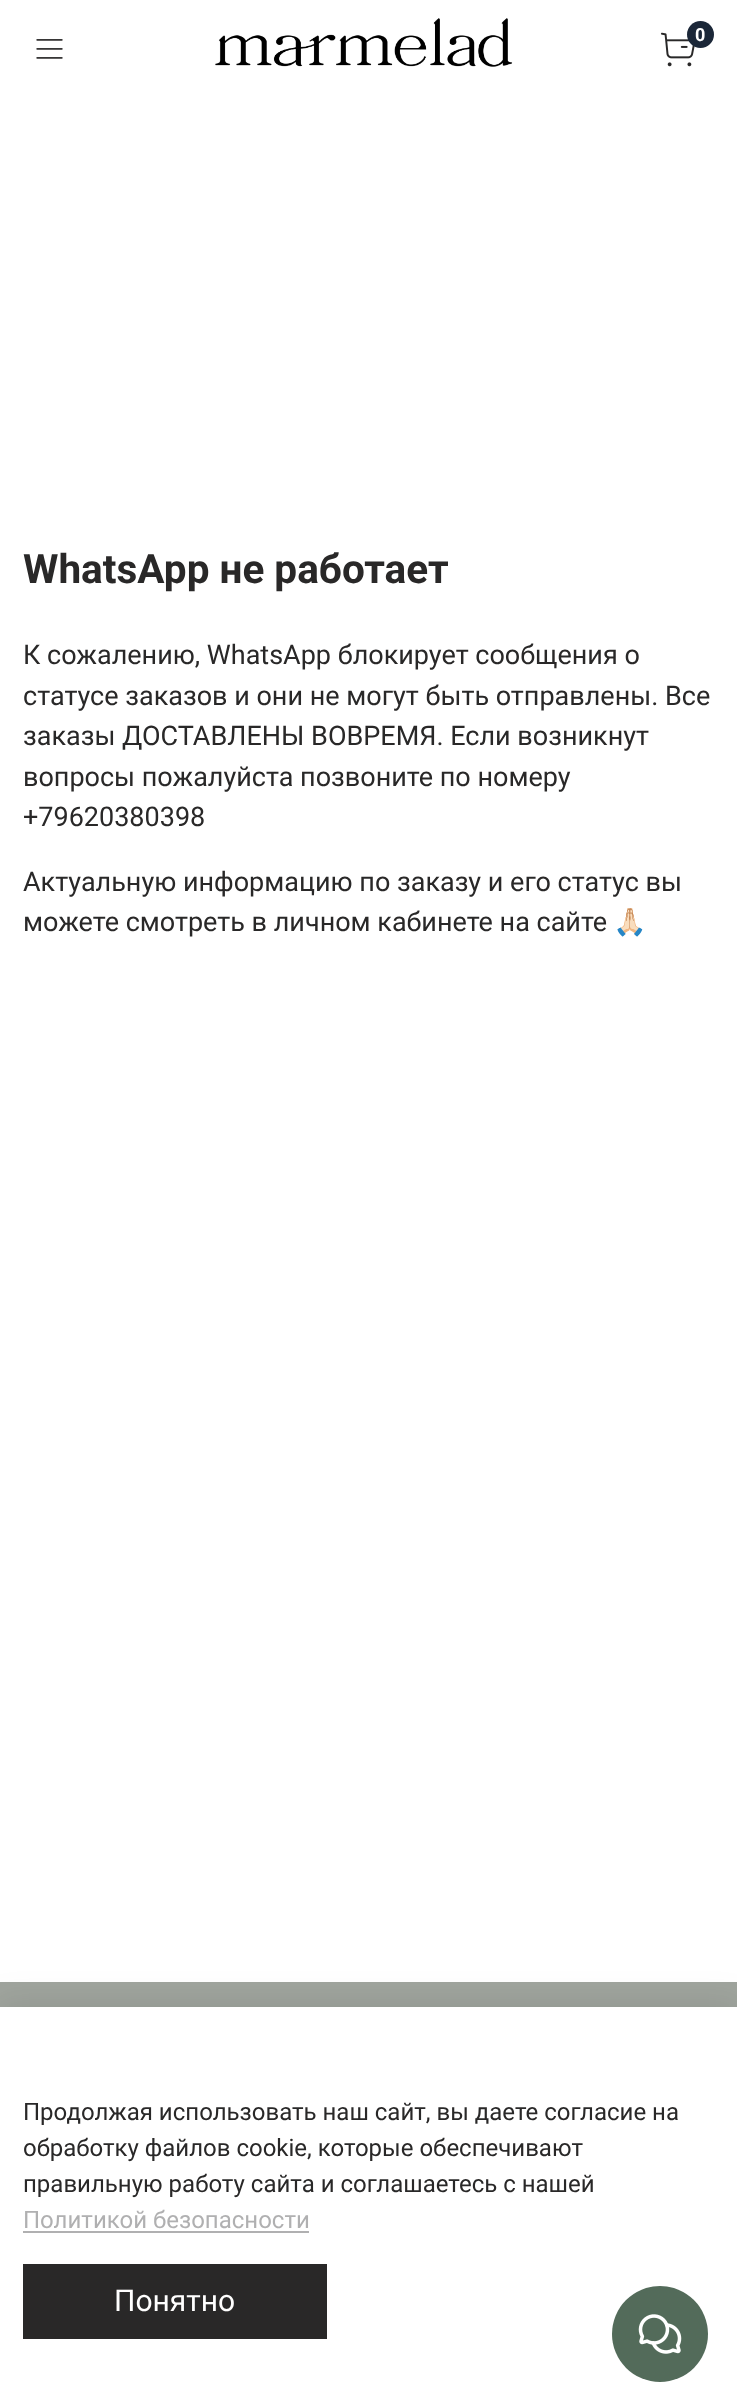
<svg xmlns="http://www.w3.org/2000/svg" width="737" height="2396">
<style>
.a{font:bold 18px Roboto;fill:#fff}
.b{font:bold 40.5px Roboto;fill:#292828}
.c{font:27px Roboto;fill:#292828}
.d{font:27px Noto Color Emoji;fill:#292828}
.e{font:24px Roboto;fill:#292828}
.f{font:24px Roboto;fill:#b0b0b1}
.g{font:30px Roboto;fill:#fff}
</style>
<rect width="100%" height="100%" fill="#fff"/>
<image href="1.png" x="215" y="18" width="298" height="49"/>
<image href="2.png" x="660" y="32" width="35" height="35"/>
<circle fill="#1b2738" cx="700.5" cy="34.5" r="13.5"/>
<image href="3.png" x="36" y="39" width="27" height="20"/>
<path fill="#a0a59e" d="M0 1982h737v25H0z"/>
<path fill="#00000017" filter="blur(17px)" d="M-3 2003h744v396H-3z"/>
<path fill="#fff" d="M0 2007h737v389H0z"/>
<path fill="#b0b0b1" d="M23 2231h286v2H23z"/>
<path fill="#292828" d="M23 2264h304v75H23z"/>
<circle fill="#536b5a" cx="660" cy="2334" r="48"/>
<image href="4.png" x="638" y="2314" width="44" height="40"/>
<text class="a" x="695" y="41">0</text>
<text class="b" x="23" y="583">WhatsApp не работает</text>
<text class="c" x="23" y="664">К сожалению, WhatsApp блокирует сообщения о</text>
<text class="c" x="23" y="705">статусе заказов и они не могут быть отправлены. Все</text>
<text class="c" x="23" y="745">заказы ДОСТАВЛЕНЫ ВОВРЕМЯ. Если возникнут</text>
<text class="c" x="23" y="786">вопросы пожалуйста позвоните по номеру</text>
<text class="c" x="23" y="826">+79620380398</text>
<text class="c" x="23" y="891">Актуальную информацию по заказу и его статус вы</text>
<text class="c" x="23" y="931">можете смотреть в личном кабинете на сайте</text>
<text class="d" x="613" y="931">🙏🏻</text>
<text class="e" x="23" y="2120">Продолжая использовать наш сайт, вы даете согласие на</text>
<text class="e" x="23" y="2156">обработку файлов cookie, которые обеспечивают</text>
<text class="e" x="23" y="2192">правильную работу сайта и соглашаетесь с нашей</text>
<text class="f" x="23" y="2228">Политикой безопасности</text>
<text class="g" x="114" y="2311">Понятно</text>
</svg>
